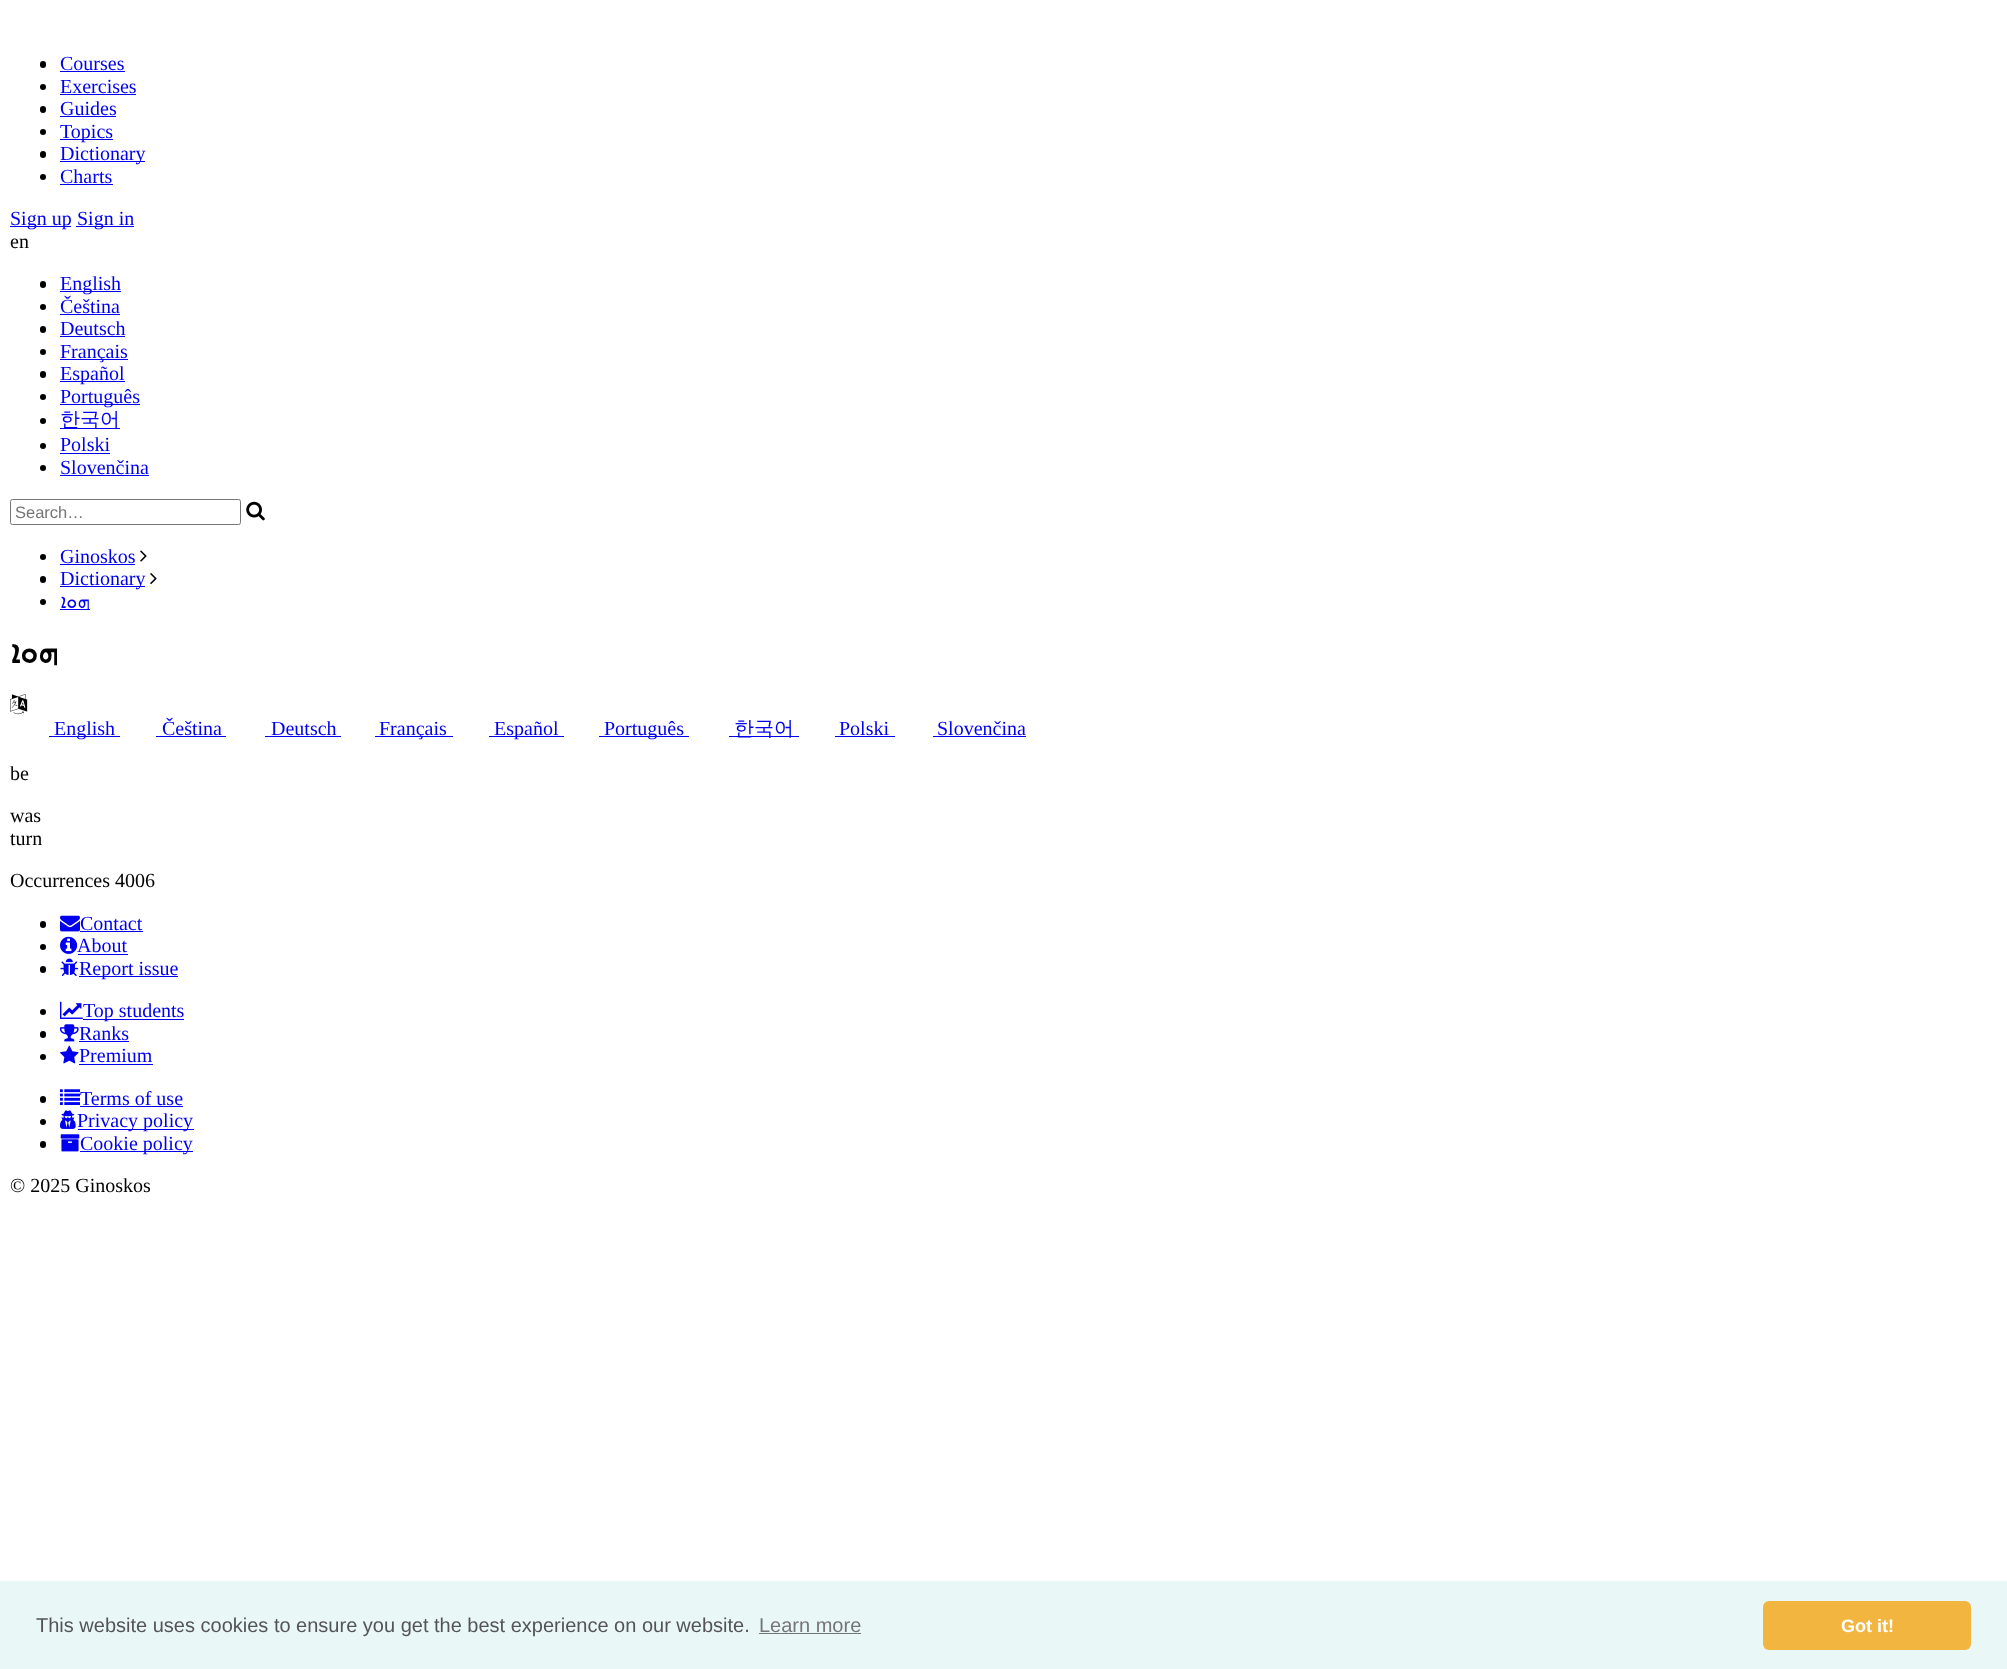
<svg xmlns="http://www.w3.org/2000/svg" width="2007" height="1669">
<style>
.a{font:20px Liberation Serif;fill:#00e}
.b{font:20px Liberation Serif;fill:#000}
.c{font:500 20px WenQuanYi Zen Hei;fill:#00e}
.d{font:16.5px Liberation Sans;fill:#757575}
.e{font:20px FreeSans;direction:rtl;fill:#00e}
.f{font:bold 32px FreeSans;direction:rtl;fill:#000}
.g{font:20px Liberation Sans;fill:#545454}
.h{font:20px Liberation Sans;fill:#757575}
.i{font:bold 18px Liberation Sans;fill:#fff}
</style>
<rect width="100%" height="100%" fill="#fff"/>
<rect fill="#000" x="40" y="61" width="6" height="7" rx="3"/>
<path fill="#00e" d="M60 71h65v1H60z"/>
<circle fill="#000" cx="43" cy="87" r="3"/>
<path fill="#00e" d="M60 94h76v1H60z"/>
<rect fill="#000" x="40" y="106" width="6" height="7" rx="3"/>
<path fill="#00e" d="M60 116h56v1H60z"/>
<circle fill="#000" cx="43" cy="132" r="3"/>
<path fill="#00e" d="M60 139h53v1H60z"/>
<rect fill="#000" x="40" y="151" width="6" height="7" rx="3"/>
<path fill="#00e" d="M60 161h85v1H60z"/>
<circle fill="#000" cx="43" cy="177" r="3"/>
<path fill="#00e" d="M60 184h53v1H60z"/>
<path fill="#00e" d="M10 226h61v1H10z"/>
<path fill="#00e" d="M76 226h58v1H76z"/>
<rect fill="#000" x="40" y="281" width="6" height="7" rx="3"/>
<path fill="#00e" d="M60 291h61v1H60z"/>
<circle fill="#000" cx="43" cy="307" r="3"/>
<path fill="#00e" d="M60 314h60v1H60z"/>
<rect fill="#000" x="40" y="326" width="6" height="7" rx="3"/>
<path fill="#00e" d="M60 336h65v1H60z"/>
<circle fill="#000" cx="43" cy="352" r="3"/>
<path fill="#00e" d="M60 359h68v1H60z"/>
<rect fill="#000" x="40" y="371" width="6" height="7" rx="3"/>
<path fill="#00e" d="M60 381h65v1H60z"/>
<circle fill="#000" cx="43" cy="397" r="3"/>
<path fill="#00e" d="M60 404h80v1H60z"/>
<circle fill="#000" cx="43" cy="421" r="3"/>
<path fill="#00e" d="M60 428h60v1H60z"/>
<circle fill="#000" cx="43" cy="446" r="3"/>
<path fill="#00e" d="M60 453h50v1H60z"/>
<circle fill="#000" cx="43" cy="468" r="3"/>
<path fill="#00e" d="M60 475h89v1H60z"/>
<rect fill="none" stroke="#767676" x="10.5" y="499.5" width="230" height="25" rx="2"/>
<image href="1.png" x="246" y="501" width="19" height="20"/>
<circle fill="#000" cx="43" cy="557" r="3"/>
<path fill="#00e" d="M60 564h75v1H60z"/>
<image href="2.png" x="140" y="550" width="7" height="12"/>
<rect fill="#000" x="40" y="576" width="6" height="7" rx="3"/>
<path fill="#00e" d="M60 586h85v1H60z"/>
<image href="3.png" x="150" y="573" width="7" height="12"/>
<circle fill="#000" cx="43" cy="602" r="3"/>
<path fill="#00e" d="M60 609h30v1H60z"/>
<image href="4.png" x="10" y="694" width="18" height="21"/>
<path fill="#00e" d="M49 736h71v1H49z"/>
<path fill="#00e" d="M156 736h70v1H156z"/>
<path fill="#00e" d="M265 736h76v1H265z"/>
<path fill="#00e" d="M375 736h78v1H375z"/>
<path fill="#00e" d="M489 736h75v1H489z"/>
<path fill="#00e" d="M599 736h90v1H599z"/>
<path fill="#00e" d="M729 736h70v1H729z"/>
<path fill="#00e" d="M835 736h60v1H835z"/>
<path fill="#00e" d="M933 736h93v1H933z"/>
<rect fill="#000" x="40" y="921" width="6" height="7" rx="3"/>
<image href="5.png" x="60" y="915" width="20" height="17"/>
<path fill="#00e" d="M80 931h63v1H80z"/>
<circle fill="#000" cx="43" cy="947" r="3"/>
<path fill="#00e" d="M78 954h50v1H78z"/>
<rect fill="#000" x="40" y="966" width="6" height="7" rx="3"/>
<image href="7.png" x="60" y="958" width="19" height="18"/>
<path fill="#00e" d="M79 976h99v1H79z"/>
<circle fill="#000" cx="43" cy="1012" r="3"/>
<image href="8.png" x="60" y="1001" width="23" height="18"/>
<path fill="#00e" d="M83 1019h101v1H83z"/>
<rect fill="#000" x="40" y="1031" width="6" height="7" rx="3"/>
<image href="9.png" x="60" y="1024" width="19" height="18"/>
<path fill="#00e" d="M79 1041h50v1H79z"/>
<circle fill="#000" cx="43" cy="1057" r="3"/>
<image href="10.png" x="60" y="1045" width="19" height="19"/>
<path fill="#00e" d="M79 1064h74v1H79z"/>
<rect fill="#000" x="40" y="1096" width="6" height="7" rx="3"/>
<image href="11.png" x="60" y="1089" width="20" height="16"/>
<path fill="#00e" d="M80 1106h103v1H80z"/>
<circle fill="#000" cx="43" cy="1122" r="3"/>
<image href="12.png" x="60" y="1110" width="16" height="19"/>
<path fill="#00e" d="M78 1129h116v1H78z"/>
<rect fill="#000" x="40" y="1141" width="6" height="7" rx="3"/>
<image href="13.png" x="60" y="1134" width="20" height="18"/>
<path fill="#00e" d="M80 1151h113v1H80z"/>
<path fill="#eaf7f7" d="M0 1581h2007v88H0z"/>
<path fill="#727575" d="M759 1633h102v1H759z"/>
<rect fill="#f2b53f" x="1763" y="1601" width="208" height="49" rx="6"/>
<text class="a" x="60" y="70">Courses</text>
<text class="a" x="60" y="93">Exercises</text>
<text class="a" x="60" y="115">Guides</text>
<text class="a" x="60" y="138">Topics</text>
<text class="a" x="60" y="160">Dictionary</text>
<text class="a" x="60" y="183">Charts</text>
<text class="a" x="10" y="225">Sign up</text>
<text class="a" x="77" y="225">Sign in</text>
<text class="b" x="10" y="248">en</text>
<text class="a" x="60" y="290">English</text>
<text class="a" x="60" y="313">Čeština</text>
<text class="a" x="60" y="335">Deutsch</text>
<text class="a" x="60" y="358">Français</text>
<text class="a" x="60" y="380">Español</text>
<text class="a" x="60" y="403">Português</text>
<text class="c" x="60" y="426">한국어</text>
<text class="a" x="60" y="451">Polski</text>
<text class="a" x="60" y="474">Slovenčina</text>
<text class="d" x="15" y="518">Search…</text>
<text class="a" x="60" y="563">Ginoskos</text>
<text class="a" x="60" y="585">Dictionary</text>
<text class="e" x="90" y="608">ܗܘܐ</text>
<text class="f" x="58" y="663">ܗܘܐ</text>
<text class="a" x="54" y="735">English</text>
<text class="a" x="162" y="735">Čeština</text>
<text class="a" x="271" y="735">Deutsch</text>
<text class="a" x="379" y="735">Français</text>
<text class="a" x="494" y="735">Español</text>
<text class="a" x="604" y="735">Português</text>
<text class="c" x="734" y="735">한국어</text>
<text class="a" x="839" y="735">Polski</text>
<text class="a" x="937" y="735">Slovenčina</text>
<text class="b" x="10" y="780">be</text>
<text class="b" x="10" y="822">was</text>
<text class="b" x="10" y="845">turn</text>
<text class="b" x="10" y="887">Occurrences 4006</text>
<text class="a" x="80" y="930">Contact</text>
<text class="a" x="77" y="952">About</text>
<image href="6.png" x="60" y="936" width="18" height="18"/>
<text class="a" x="79" y="975">Report issue</text>
<text class="a" x="83" y="1017">Top students</text>
<text class="a" x="79" y="1040">Ranks</text>
<text class="a" x="79" y="1062">Premium</text>
<text class="a" x="80" y="1105">Terms of use</text>
<text class="a" x="77" y="1127">Privacy policy</text>
<text class="a" x="80" y="1150">Cookie policy</text>
<text class="b" x="10" y="1192">© 2025 Ginoskos</text>
<text class="g" x="36" y="1632">This website uses cookies to ensure you get the best experience on our website.</text>
<text class="h" x="759" y="1632">Learn more</text>
<text class="i" x="1841" y="1632">Got it!</text>
</svg>
